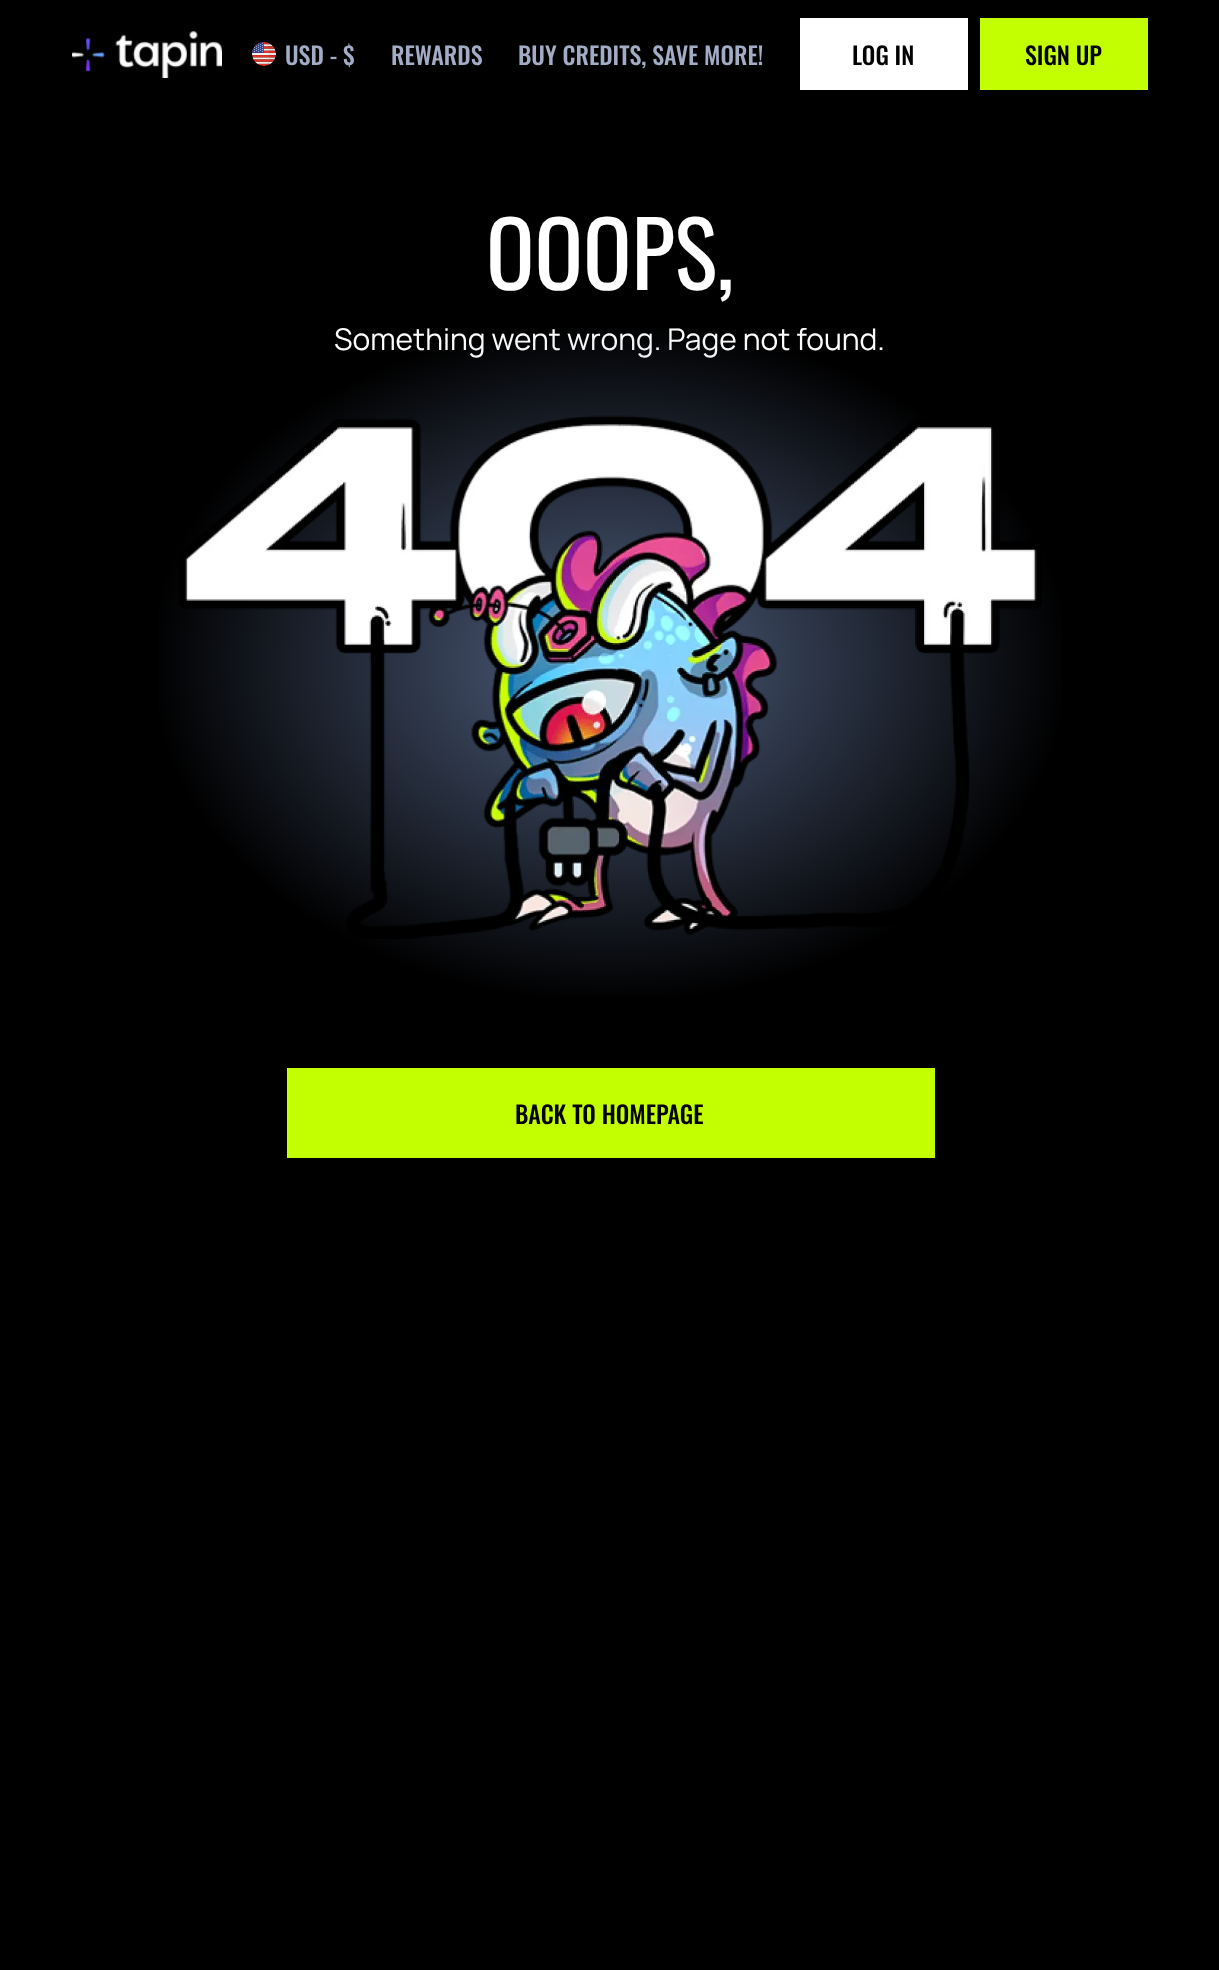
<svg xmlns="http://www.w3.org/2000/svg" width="1219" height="1970">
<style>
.a{font:500 24px Oswald;fill:#a2adc5}
.b{font:500 24px Oswald;fill:#000}
.c{font:90px Oswald;fill:#fff}
.d{font:30px Manrope;fill:#fff}
</style>
<defs>
<radialGradient id="g1" gradientUnits="userSpaceOnUse" cx="0" cy="0" r="1" gradientTransform="matrix(461 0 0 341 610 662)"><stop offset="0" stop-color="#506080"/><stop offset="1" stop-color="#506080" stop-opacity="0"/></radialGradient>
</defs>
<rect width="100%" height="100%" fill="#000"/>
<image href="1.png" x="72" y="31" width="150" height="47"/>
<image href="2.png" x="252" y="42" width="24" height="24"/>
<path fill="#fff" d="M800 18h168v72H800z"/>
<path fill="#c3ff00" d="M980 18h168v72H980z"/>
<path fill="#c3ff00" d="M287 1068h648v90H287z"/>
<text class="a" x="285" y="65">USD - $</text>
<text class="a" x="391" y="65">REWARDS</text>
<text class="a" x="518" y="65">BUY CREDITS, SAVE MORE!</text>
<text class="b" x="852" y="65">LOG IN</text>
<text class="b" x="1025" y="65">SIGN UP</text>
<text class="c" x="486" y="290">OOOPS,</text>
<text class="d" x="334" y="350">Something went wrong. Page not found.</text>
<text class="b" x="515" y="1124">BACK TO HOMEPAGE</text>
<path fill="url(#g1)" d="M158 328h904v668H158z"/>
<image href="3.png" x="179" y="415" width="863" height="524"/>
</svg>
